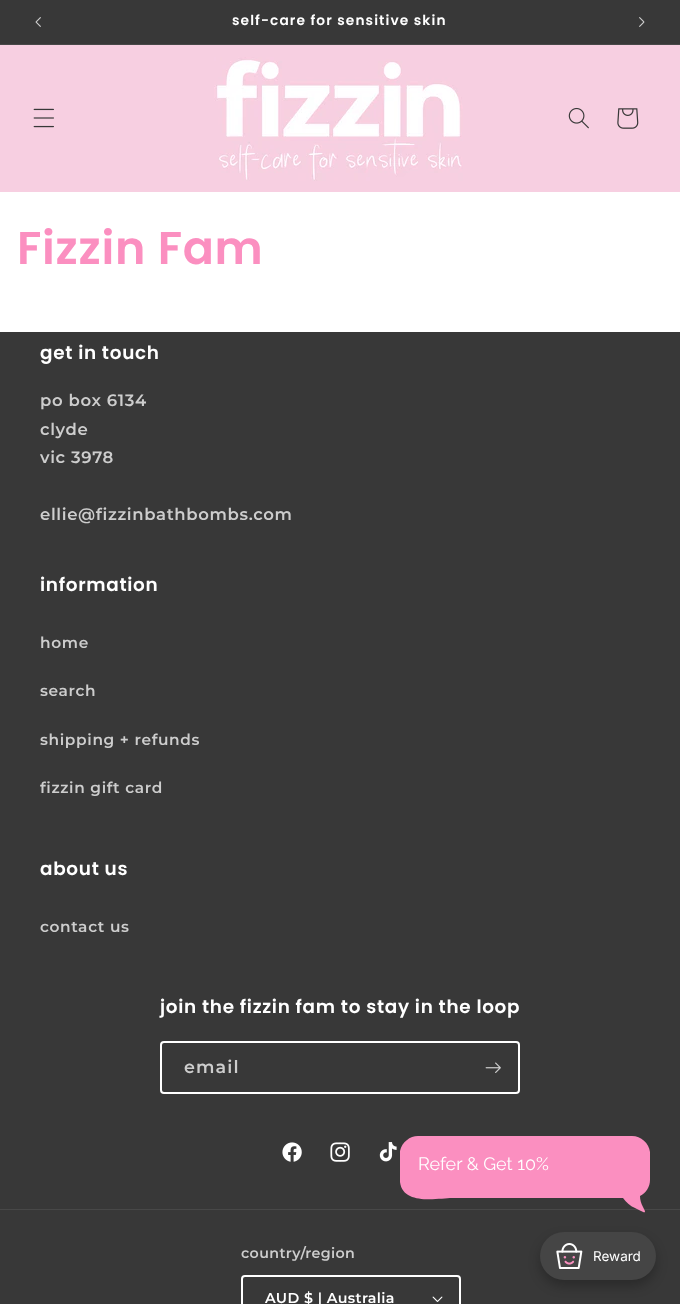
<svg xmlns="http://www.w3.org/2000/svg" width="680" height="1304">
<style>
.a{font:600 13.75px Poppins;letter-spacing:1.1px;fill:#fff}
.b{font:600 46px Poppins;letter-spacing:0.7px;fill:#fb8fc0}
.c{font:600 18.4px Poppins;letter-spacing:0.7px;fill:#fff}
.d{font:600 16.5px Montserrat;letter-spacing:0.65px;fill:#cdcdcd}
.e{font:600 15.4px Montserrat;letter-spacing:0.65px;fill:#cdcdcd}
.f{font:600 17.5px Montserrat;letter-spacing:1.1px;fill:#cdcdcd}
.g{font:600 14.25px Montserrat;letter-spacing:0.4px;fill:#cdcdcd}
.h{font:600 14.25px Montserrat;letter-spacing:0.4px;fill:#fff}
.i{font:100 18px Raleway;fill:#fff}
.j{font:13.5px Inter;fill:#fff}
</style>
<rect width="100%" height="100%" fill="#fff"/>
<path fill="#383838" d="M0 0h680v44H0z"/>
<path fill="#484848" d="M0 44h680v1H0z"/>
<image href="1.png" x="35" y="17" width="6" height="10"/>
<image href="2.png" x="639" y="17" width="6" height="10"/>
<path fill="#f7cfe1" d="M0 45h680v147H0z"/>
<image href="3.png" x="33" y="108" width="21" height="20"/>
<image href="4.png" x="214" y="57" width="249" height="124"/>
<image href="5.png" x="568" y="107" width="21" height="22"/>
<image href="6.png" x="617" y="108" width="22" height="21"/>
<path fill="#383838" d="M0 332h680v972H0z"/>
<rect fill="none" stroke="#fff" stroke-width="2" x="161" y="1042" width="358" height="51" rx="3"/>
<image href="7.png" x="485" y="1062" width="16" height="11"/>
<image href="8.png" x="282" y="1142" width="20" height="20"/>
<image href="9.png" x="330" y="1142" width="20" height="20"/>
<image href="10.png" x="379" y="1142" width="18" height="20"/>
<path fill="#484848" d="M0 1209h680v1H0z"/>
<image href="11.png" x="432" y="1296" width="11" height="6"/>
<rect fill="none" stroke="#fff" stroke-width="2" x="242" y="1276" width="218" height="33" rx="3"/>
<path fill="#fb8fc0" d="M650 1180v-28c-1-9-9-16-18-16h-214c-8 0-16 6-18 15v31c3 24 39 16 52 16h171c3 4 7 8 12 10l6 3c6 3 4 0 2-4c-2-4-3-7-3-11c6-3 10-9 10-16z"/>
<rect fill="#00000040" filter="blur(6px)" x="540" y="1238" width="116" height="48" rx="24"/>
<rect fill="#454545" x="540" y="1232" width="116" height="48" rx="24"/>
<image href="12.png" x="556" y="1243" width="27" height="26"/>
<text class="a" x="232" y="25">self-care for sensitive skin</text>
<text class="b" x="17" y="264">Fizzin Fam</text>
<text class="c" x="40" y="359">get in touch</text>
<text class="d" x="40" y="406">po box 6134</text>
<text class="d" x="40" y="435">clyde</text>
<text class="d" x="40" y="463">vic 3978</text>
<text class="d" x="40" y="520">ellie@fizzinbathbombs.com</text>
<text class="c" x="40" y="591">information</text>
<text class="e" x="40" y="648">home</text>
<text class="e" x="40" y="696">search</text>
<text class="e" x="40" y="745">shipping + refunds</text>
<text class="e" x="40" y="793">fizzin gift card</text>
<text class="c" x="40" y="875">about us</text>
<text class="e" x="40" y="932">contact us</text>
<text class="c" x="160" y="1013">join the fizzin fam to stay in the loop</text>
<text class="f" x="184" y="1073">email</text>
<text class="g" x="241" y="1258">country/region</text>
<text class="h" x="265" y="1303">AUD $ | Australia</text>
<text class="i" x="418" y="1170">Refer &amp; Get 10%</text>
<text class="j" x="593" y="1261">Reward</text>
</svg>
